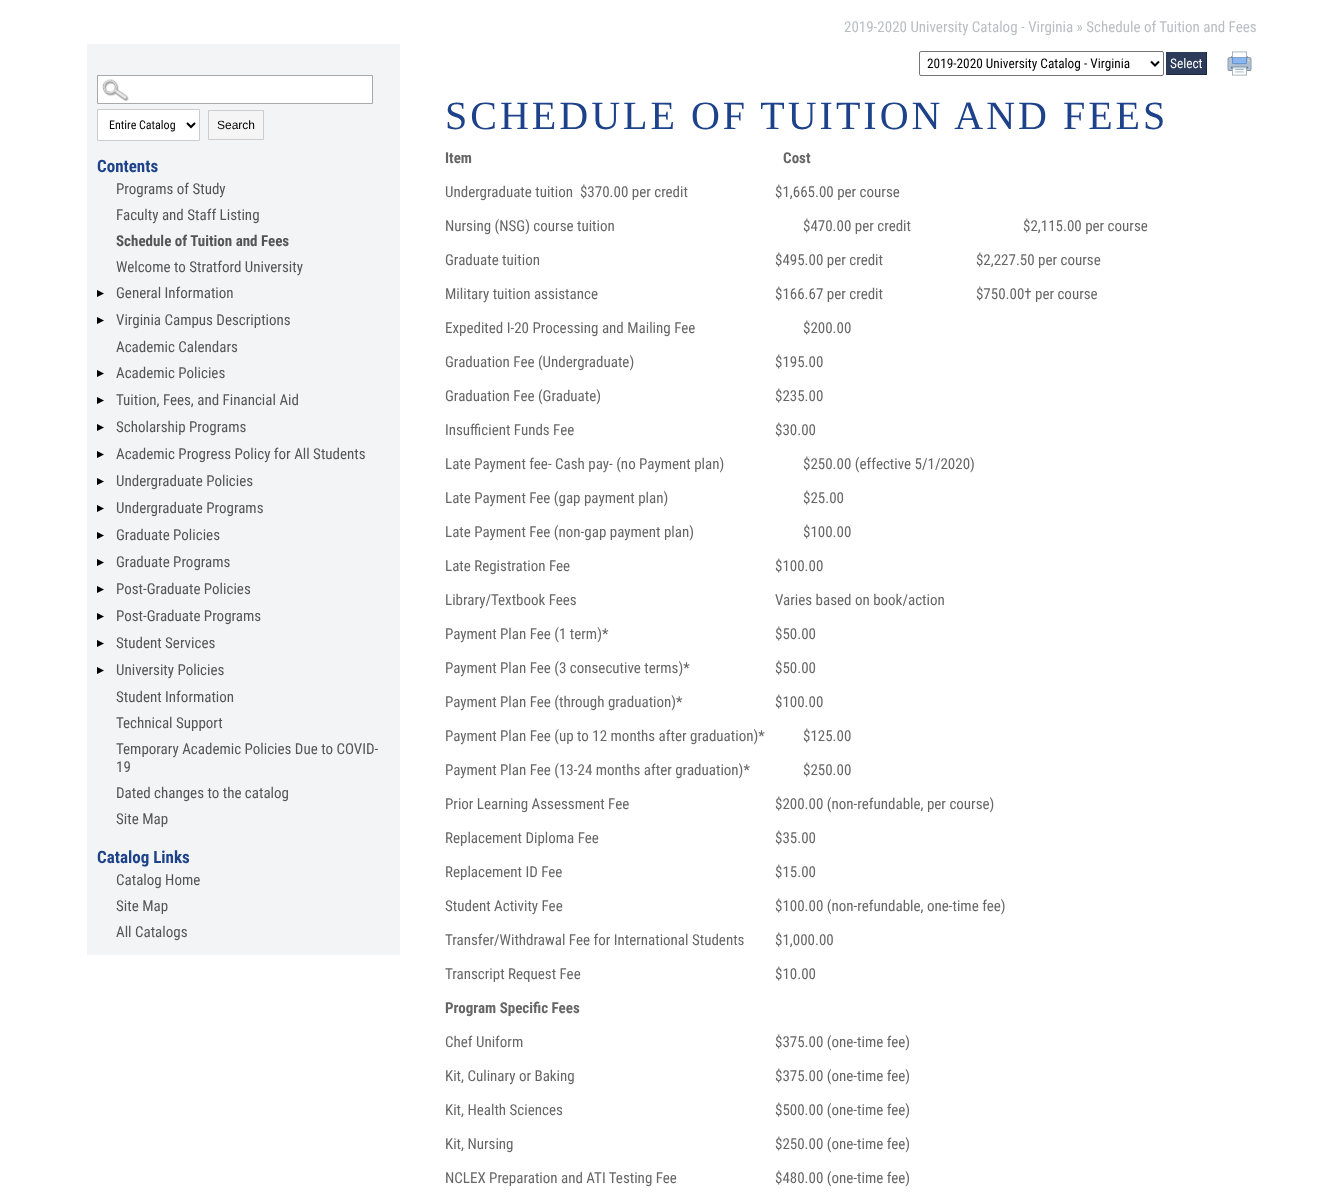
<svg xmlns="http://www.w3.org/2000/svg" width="1344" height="1193">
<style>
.a{font:15px Roboto Condensed;fill:#b9bec3}
.b{font:12px Roboto Condensed;fill:#000}
.c{font:12px Liberation Sans;fill:#000}
.d{font:bold 17px Roboto Condensed;fill:#1d428a}
.e{font:15px Roboto Condensed;fill:#555}
.f{font:bold 15px Roboto Condensed;fill:#555}
.g{font:13.3px Roboto Condensed;fill:#000}
.h{font:13.3px Roboto Condensed;fill:#fff}
.i{font:40px Liberation Serif;letter-spacing:3px;fill:#1d428a}
.j{font:bold 15px Roboto Condensed;fill:#666}
.k{font:15px Roboto Condensed;fill:#666}
</style>
<rect width="100%" height="100%" fill="#fff"/>
<path fill="#f2f4f6" d="M87 44h313v911H87z"/>
<path fill="#fff" d="M98 76h274v27H98z"/>
<image href="1.png" x="102" y="79" width="27" height="23"/>
<path fill="none" stroke="#a9a9a9" d="M97.5 75.5h275v28H97.5z"/>
<path fill="#fff" stroke="#ccc" d="M97.5 109.5h102v31H97.5z"/>
<path fill="none" stroke="#000" stroke-width="2" d="M187 123l4 4l4-4"/>
<path fill="#f5f5f5" stroke="#ccc" d="M208.5 110.5h55v29H208.5z"/>
<image href="2.png" x="97" y="290" width="7" height="7"/>
<image href="2.png" x="97" y="317" width="7" height="7"/>
<image href="2.png" x="97" y="370" width="7" height="7"/>
<image href="2.png" x="97" y="397" width="7" height="7"/>
<image href="2.png" x="97" y="424" width="7" height="7"/>
<image href="2.png" x="97" y="451" width="7" height="7"/>
<image href="2.png" x="97" y="478" width="7" height="7"/>
<image href="2.png" x="97" y="505" width="7" height="7"/>
<image href="2.png" x="97" y="532" width="7" height="7"/>
<image href="2.png" x="97" y="559" width="7" height="7"/>
<image href="2.png" x="97" y="586" width="7" height="7"/>
<image href="2.png" x="97" y="613" width="7" height="7"/>
<image href="2.png" x="97" y="640" width="7" height="7"/>
<image href="2.png" x="97" y="667" width="7" height="7"/>
<rect fill="none" stroke="#767676" x="919.5" y="51.5" width="244" height="24" rx="1.5"/>
<path fill="none" stroke="#000" stroke-width="2" d="M1151 61.5l4 4l4-4"/>
<path fill="#2c3b59" d="M1167 52h39v22H1167z"/>
<path fill="#1d273b" d="M1206 52h1v23H1206z"/>
<path fill="#1d273b" d="M1166 74h41v1H1166z"/>
<path fill="#2c3b59" d="M1166 52h1v23H1166z"/>
<image href="3.png" x="1227" y="51" width="25" height="25"/>
<text class="a" x="844" y="32">2019-2020 University Catalog - Virginia » Schedule of Tuition and Fees</text>
<text class="b" x="109" y="129">Entire Catalog</text>
<text class="c" x="217" y="129">Search</text>
<text class="d" x="97" y="172">Contents</text>
<text class="e" x="116" y="194">Programs of Study</text>
<text class="e" x="116" y="220">Faculty and Staff Listing</text>
<text class="f" x="116" y="246">Schedule of Tuition and Fees</text>
<text class="e" x="116" y="272">Welcome to Stratford University</text>
<text class="e" x="116" y="298">General Information</text>
<text class="e" x="116" y="325">Virginia Campus Descriptions</text>
<text class="e" x="116" y="352">Academic Calendars</text>
<text class="e" x="116" y="378">Academic Policies</text>
<text class="e" x="116" y="405">Tuition, Fees, and Financial Aid</text>
<text class="e" x="116" y="432">Scholarship Programs</text>
<text class="e" x="116" y="459">Academic Progress Policy for All Students</text>
<text class="e" x="116" y="486">Undergraduate Policies</text>
<text class="e" x="116" y="513">Undergraduate Programs</text>
<text class="e" x="116" y="540">Graduate Policies</text>
<text class="e" x="116" y="567">Graduate Programs</text>
<text class="e" x="116" y="594">Post-Graduate Policies</text>
<text class="e" x="116" y="621">Post-Graduate Programs</text>
<text class="e" x="116" y="648">Student Services</text>
<text class="e" x="116" y="675">University Policies</text>
<text class="e" x="116" y="702">Student Information</text>
<text class="e" x="116" y="728">Technical Support</text>
<text class="e" x="116" y="754">Temporary Academic Policies Due to COVID-</text>
<text class="e" x="116" y="772">19</text>
<text class="e" x="116" y="798">Dated changes to the catalog</text>
<text class="e" x="116" y="824">Site Map</text>
<text class="d" x="97" y="863">Catalog Links</text>
<text class="e" x="116" y="885">Catalog Home</text>
<text class="e" x="116" y="911">Site Map</text>
<text class="e" x="116" y="937">All Catalogs</text>
<text class="g" x="927" y="68">2019-2020 University Catalog - Virginia</text>
<text class="h" x="1170" y="68">Select</text>
<text class="i" x="445" y="129">SCHEDULE OF TUITION AND FEES</text>
<text class="j" xml:space="preserve" x="445" y="163">Item                                                                                          Cost</text>
<text class="k" xml:space="preserve" x="445" y="197">Undergraduate tuition  $370.00 per credit</text>
<text class="k" x="775" y="197">$1,665.00 per course</text>
<text class="k" x="445" y="231">Nursing (NSG) course tuition</text>
<text class="k" x="803" y="231">$470.00 per credit</text>
<text class="k" x="1023" y="231">$2,115.00 per course</text>
<text class="k" x="445" y="265">Graduate tuition</text>
<text class="k" xml:space="preserve" x="775" y="265">$495.00 per credit                           $2,227.50 per course</text>
<text class="k" x="445" y="299">Military tuition assistance</text>
<text class="k" xml:space="preserve" x="775" y="299">$166.67 per credit                           $750.00† per course</text>
<text class="k" x="445" y="333">Expedited I-20 Processing and Mailing Fee</text>
<text class="k" x="803" y="333">$200.00</text>
<text class="k" x="445" y="367">Graduation Fee (Undergraduate)</text>
<text class="k" x="775" y="367">$195.00</text>
<text class="k" x="445" y="401">Graduation Fee (Graduate)</text>
<text class="k" x="775" y="401">$235.00</text>
<text class="k" x="445" y="435">Insufficient Funds Fee</text>
<text class="k" x="775" y="435">$30.00</text>
<text class="k" x="445" y="469">Late Payment fee- Cash pay- (no Payment plan)</text>
<text class="k" x="803" y="469">$250.00 (effective 5/1/2020)</text>
<text class="k" x="445" y="503">Late Payment Fee (gap payment plan)</text>
<text class="k" x="803" y="503">$25.00</text>
<text class="k" x="445" y="537">Late Payment Fee (non-gap payment plan)</text>
<text class="k" x="803" y="537">$100.00</text>
<text class="k" x="445" y="571">Late Registration Fee</text>
<text class="k" x="775" y="571">$100.00</text>
<text class="k" x="445" y="605">Library/Textbook Fees</text>
<text class="k" x="775" y="605">Varies based on book/action</text>
<text class="k" x="445" y="639">Payment Plan Fee (1 term)*</text>
<text class="k" x="775" y="639">$50.00</text>
<text class="k" x="445" y="673">Payment Plan Fee (3 consecutive terms)*</text>
<text class="k" x="775" y="673">$50.00</text>
<text class="k" x="445" y="707">Payment Plan Fee (through graduation)*</text>
<text class="k" x="775" y="707">$100.00</text>
<text class="k" x="445" y="741">Payment Plan Fee (up to 12 months after graduation)*</text>
<text class="k" x="803" y="741">$125.00</text>
<text class="k" x="445" y="775">Payment Plan Fee (13-24 months after graduation)*</text>
<text class="k" x="803" y="775">$250.00</text>
<text class="k" x="445" y="809">Prior Learning Assessment Fee</text>
<text class="k" x="775" y="809">$200.00 (non-refundable, per course)</text>
<text class="k" x="445" y="843">Replacement Diploma Fee</text>
<text class="k" x="775" y="843">$35.00</text>
<text class="k" x="445" y="877">Replacement ID Fee</text>
<text class="k" x="775" y="877">$15.00</text>
<text class="k" x="445" y="911">Student Activity Fee</text>
<text class="k" x="775" y="911">$100.00 (non-refundable, one-time fee)</text>
<text class="k" x="445" y="945">Transfer/Withdrawal Fee for International Students</text>
<text class="k" x="775" y="945">$1,000.00</text>
<text class="k" x="445" y="979">Transcript Request Fee</text>
<text class="k" x="775" y="979">$10.00</text>
<text class="j" x="445" y="1013">Program Specific Fees</text>
<text class="k" x="445" y="1047">Chef Uniform</text>
<text class="k" x="775" y="1047">$375.00 (one-time fee)</text>
<text class="k" x="445" y="1081">Kit, Culinary or Baking</text>
<text class="k" x="775" y="1081">$375.00 (one-time fee)</text>
<text class="k" x="445" y="1115">Kit, Health Sciences</text>
<text class="k" x="775" y="1115">$500.00 (one-time fee)</text>
<text class="k" x="445" y="1149">Kit, Nursing</text>
<text class="k" x="775" y="1149">$250.00 (one-time fee)</text>
<text class="k" x="445" y="1183">NCLEX Preparation and ATI Testing Fee</text>
<text class="k" x="775" y="1183">$480.00 (one-time fee)</text>
</svg>
